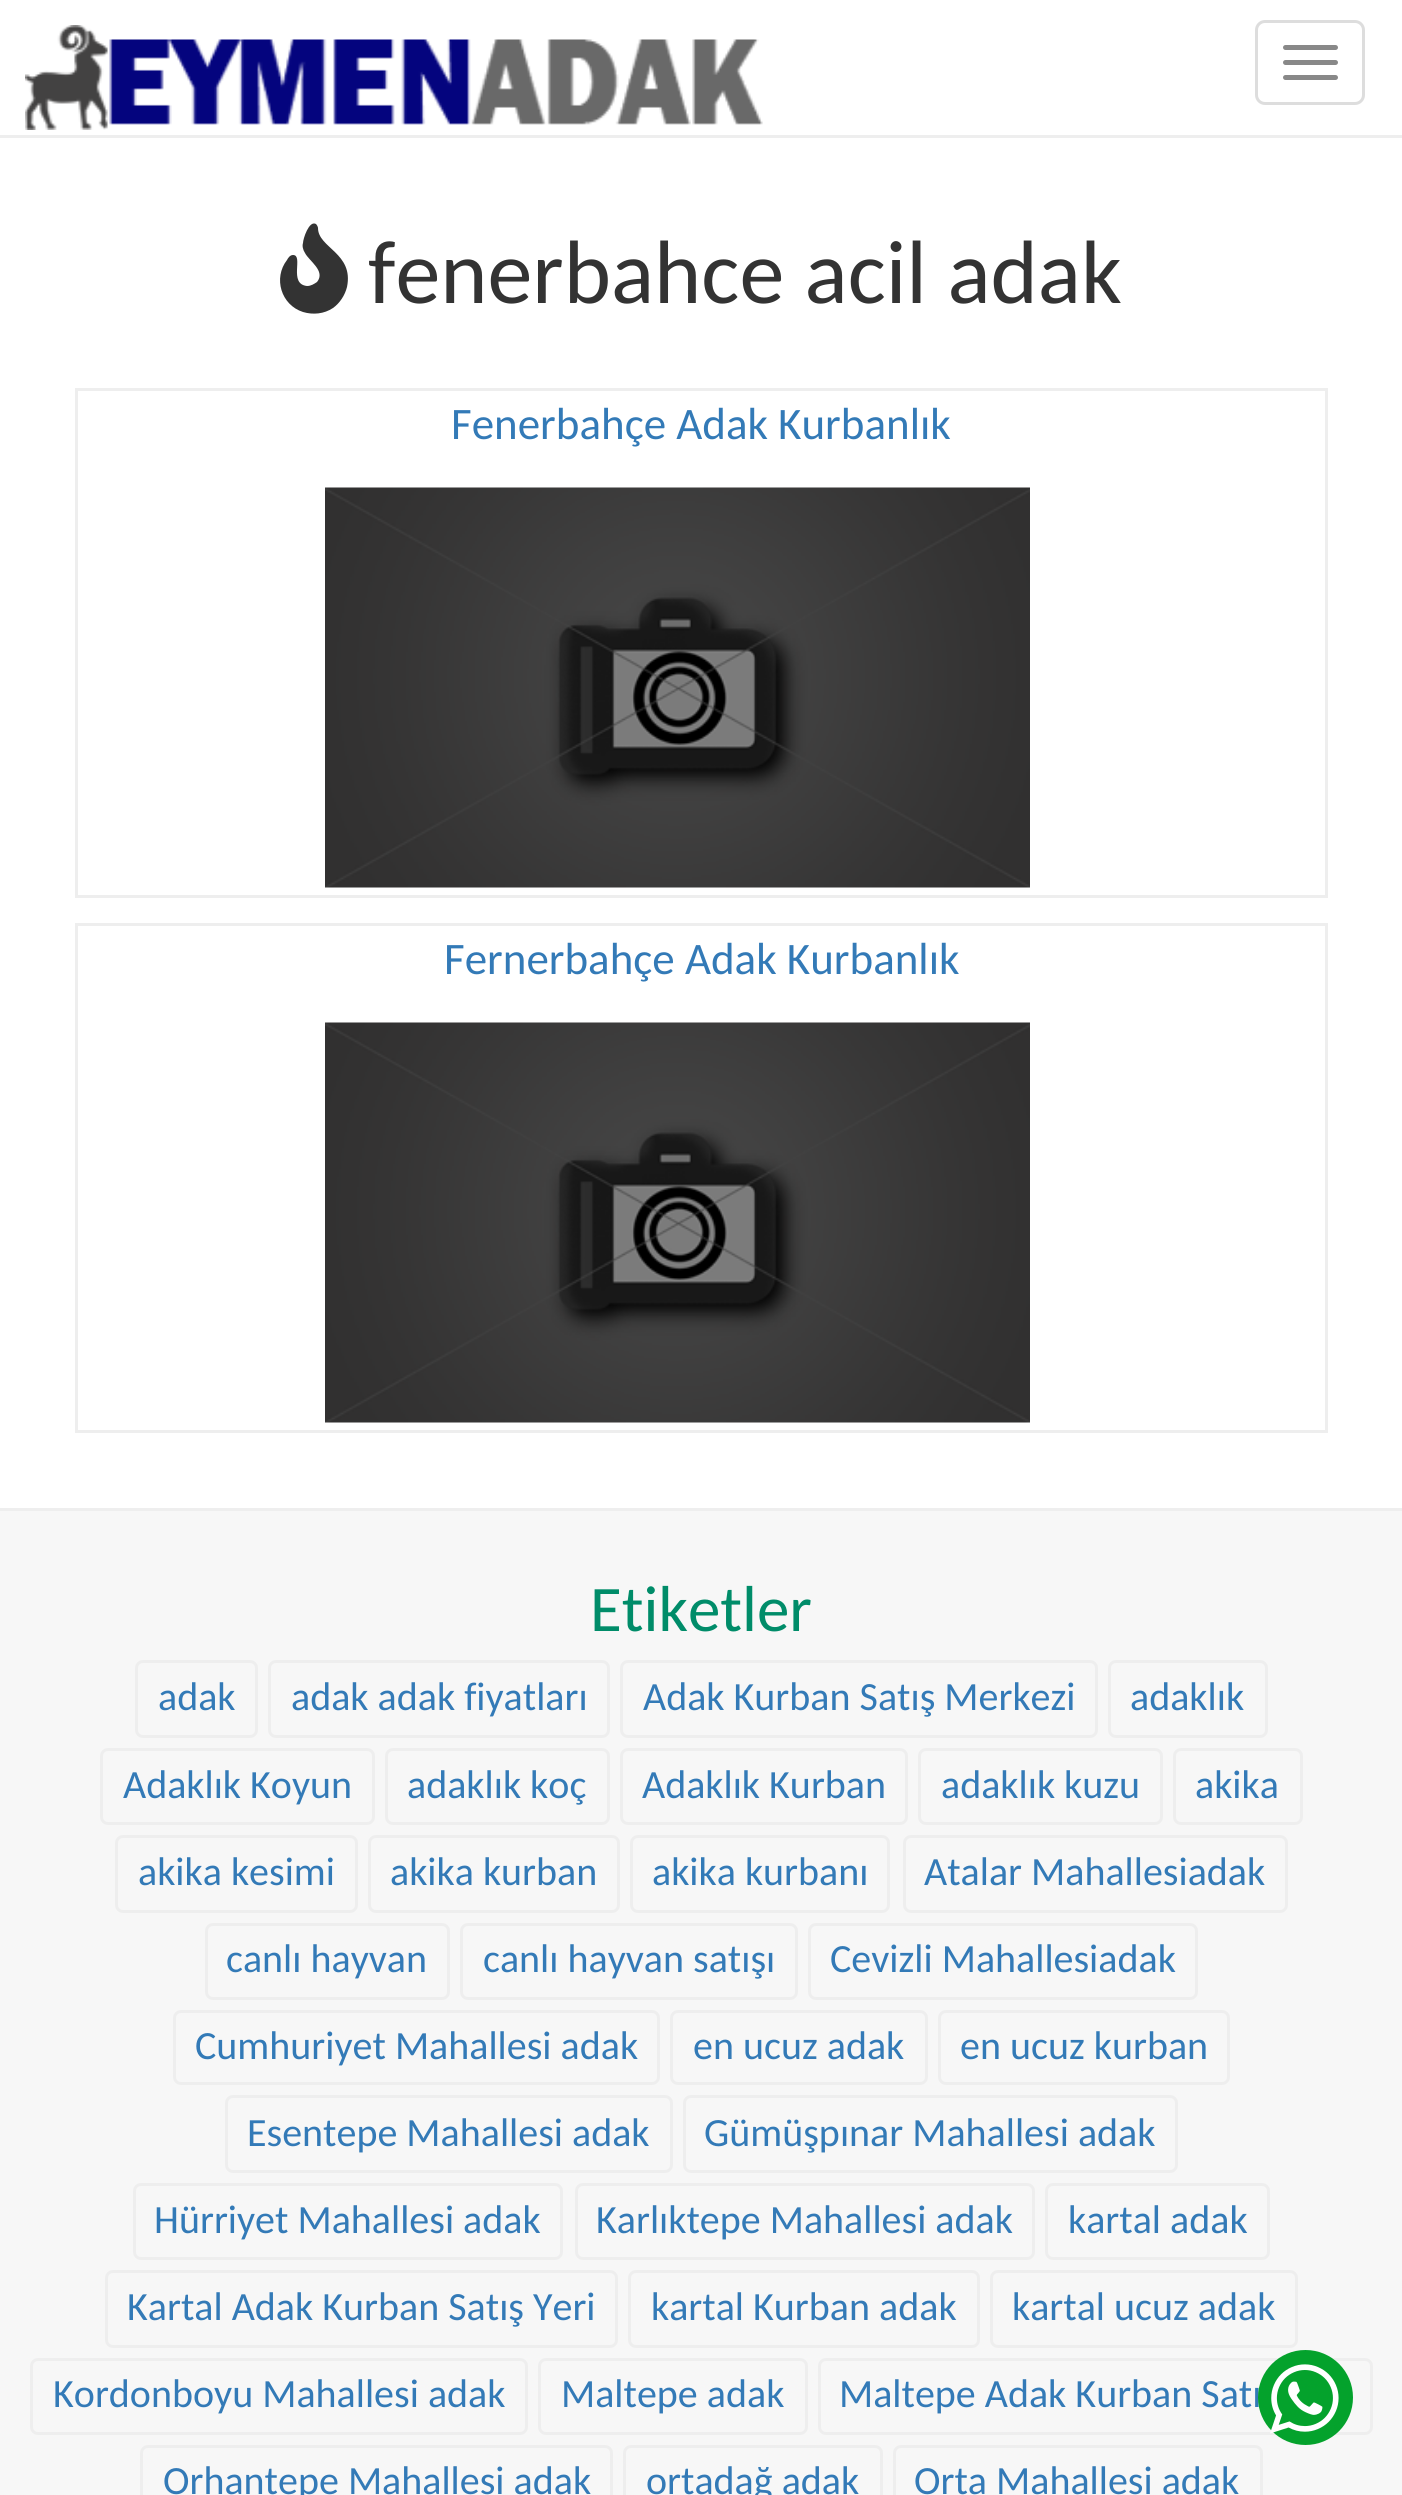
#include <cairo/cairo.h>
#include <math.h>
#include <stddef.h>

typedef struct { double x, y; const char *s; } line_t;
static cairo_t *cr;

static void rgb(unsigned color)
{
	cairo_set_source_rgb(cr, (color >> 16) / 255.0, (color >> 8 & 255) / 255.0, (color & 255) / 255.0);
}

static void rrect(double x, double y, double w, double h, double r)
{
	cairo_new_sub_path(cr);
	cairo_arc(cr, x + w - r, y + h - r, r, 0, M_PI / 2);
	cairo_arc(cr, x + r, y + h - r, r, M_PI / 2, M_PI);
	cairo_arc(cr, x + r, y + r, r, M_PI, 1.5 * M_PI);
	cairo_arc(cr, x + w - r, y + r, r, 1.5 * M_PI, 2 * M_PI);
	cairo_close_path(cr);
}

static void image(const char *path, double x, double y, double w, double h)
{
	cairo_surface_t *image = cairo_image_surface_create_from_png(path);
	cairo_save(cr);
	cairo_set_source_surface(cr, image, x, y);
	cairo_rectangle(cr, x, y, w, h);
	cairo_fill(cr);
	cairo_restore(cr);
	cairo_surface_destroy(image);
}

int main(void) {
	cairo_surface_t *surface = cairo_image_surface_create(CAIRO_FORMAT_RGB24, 1402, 2495);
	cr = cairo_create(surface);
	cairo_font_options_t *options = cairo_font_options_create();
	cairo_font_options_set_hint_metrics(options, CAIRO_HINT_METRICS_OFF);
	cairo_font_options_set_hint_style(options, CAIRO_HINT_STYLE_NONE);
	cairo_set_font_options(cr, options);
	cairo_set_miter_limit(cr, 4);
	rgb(0xffffff);
	cairo_paint(cr);
	rgb(0xeeeeee);
	cairo_rectangle(cr, 0, 135, 1402, 3);
	cairo_fill(cr);
	image("img/1.png", 25, 25, 738, 105);
	rrect(1256.5, 21.5, 107, 82, 8.5);
	rgb(0xdddddd);
	cairo_set_line_width(cr, 3);
	cairo_stroke(cr);
	rgb(0x888888);
	rrect(1283, 45, 55, 5, 2.5);
	cairo_fill(cr);
	rrect(1283, 60, 55, 5, 2.5);
	cairo_fill(cr);
	rrect(1283, 75, 55, 5, 2.5);
	cairo_fill(cr);
	rgb(0x333333);
	cairo_new_path(cr);
	cairo_move_to(cr, 318, 228);
	cairo_curve_to(cr, 318, 227, 317, 225, 316, 224);
	cairo_curve_to(cr, 309, 220, 303, 239, 303, 243);
	cairo_curve_to(cr, 302, 246, 303, 250, 305, 253);
	cairo_curve_to(cr, 309, 261, 326, 271, 317, 282);
	cairo_curve_to(cr, 314, 284, 311, 286, 307, 286);
	cairo_curve_to(cr, 288, 284, 304, 255, 293, 255);
	cairo_curve_to(cr, 290, 255, 288, 258, 287, 260);
	cairo_curve_to(cr, 273, 278, 281, 305, 303, 312);
	cairo_curve_to(cr, 313, 315, 324, 314, 333, 308);
	cairo_curve_to(cr, 340, 303, 345, 295, 347, 287);
	cairo_curve_to(cr, 354, 253, 318, 248, 318, 228);
	cairo_close_path(cr);
	cairo_fill(cr);
	cairo_rectangle(cr, 76.5, 389.5, 1250, 507);
	rgb(0xeeeeee);
	cairo_stroke(cr);
	image("img/2.png", 325, 487, 705, 401);
	cairo_rectangle(cr, 76.5, 924.5, 1250, 507);
	cairo_stroke(cr);
	image("img/2.png", 325, 1022, 705, 401);
	rgb(0xf7f7f7);
	cairo_rectangle(cr, 0, 1511, 1402, 984);
	cairo_fill(cr);
	rgb(0xeeeeee);
	cairo_rectangle(cr, 0, 1508, 1402, 3);
	cairo_fill(cr);
	rrect(136.5, 1661.5, 120, 75, 6.5);
	cairo_stroke(cr);
	rrect(269.5, 1661.5, 339, 75, 6.5);
	cairo_stroke(cr);
	rrect(621.5, 1661.5, 475, 75, 6.5);
	cairo_stroke(cr);
	rrect(1109.5, 1661.5, 157, 75, 6.5);
	cairo_stroke(cr);
	rrect(101.5, 1749.5, 272, 74, 6.5);
	cairo_stroke(cr);
	rrect(386.5, 1749.5, 222, 74, 6.5);
	cairo_stroke(cr);
	rrect(621.5, 1749.5, 285, 74, 6.5);
	cairo_stroke(cr);
	rrect(919.5, 1749.5, 242, 74, 6.5);
	cairo_stroke(cr);
	rrect(1174.5, 1749.5, 127, 74, 6.5);
	cairo_stroke(cr);
	rrect(116.5, 1836.5, 240, 75, 6.5);
	cairo_stroke(cr);
	rrect(369.5, 1836.5, 249, 75, 6.5);
	cairo_stroke(cr);
	rrect(631.5, 1836.5, 257, 75, 6.5);
	cairo_stroke(cr);
	rrect(904.5, 1836.5, 382, 75, 6.5);
	cairo_stroke(cr);
	rrect(206.5, 1924.5, 242, 74, 6.5);
	cairo_stroke(cr);
	rrect(461.5, 1924.5, 335, 74, 6.5);
	cairo_stroke(cr);
	rrect(809.5, 1924.5, 387, 74, 6.5);
	cairo_stroke(cr);
	rrect(174.5, 2011.5, 484, 72, 6.5);
	cairo_stroke(cr);
	rrect(671.5, 2011.5, 255, 72, 6.5);
	cairo_stroke(cr);
	rrect(939.5, 2011.5, 289, 72, 6.5);
	cairo_stroke(cr);
	rrect(226.5, 2096.5, 445, 75, 6.5);
	cairo_stroke(cr);
	rrect(684.5, 2096.5, 492, 75, 6.5);
	cairo_stroke(cr);
	rrect(134.5, 2184.5, 427, 74, 6.5);
	cairo_stroke(cr);
	rrect(576.5, 2184.5, 457, 74, 6.5);
	cairo_stroke(cr);
	rrect(1046.5, 2184.5, 222, 74, 6.5);
	cairo_stroke(cr);
	rrect(106.5, 2271.5, 510, 75, 6.5);
	cairo_stroke(cr);
	rrect(629.5, 2271.5, 349, 75, 6.5);
	cairo_stroke(cr);
	rrect(991.5, 2271.5, 305, 75, 6.5);
	cairo_stroke(cr);
	rrect(31.5, 2359.5, 495, 74, 6.5);
	cairo_stroke(cr);
	rrect(539.5, 2359.5, 267, 74, 6.5);
	cairo_stroke(cr);
	rrect(819.5, 2359.5, 552, 74, 6.5);
	cairo_stroke(cr);
	rrect(141.5, 2446.5, 470, 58, 6.5);
	cairo_stroke(cr);
	rrect(624.5, 2446.5, 257, 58, 6.5);
	cairo_stroke(cr);
	rrect(894.5, 2446.5, 367, 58, 6.5);
	cairo_stroke(cr);
	cairo_select_font_face(cr, "Carlito", CAIRO_FONT_SLANT_NORMAL, CAIRO_FONT_WEIGHT_NORMAL);
	cairo_set_font_size(cr, 90);
	rgb(0x333333);
	cairo_move_to(cr, 368, 303);
	cairo_show_text(cr, "fenerbahce acil adak");
	cairo_set_font_size(cr, 45);
	rgb(0x337ab7);
	cairo_move_to(cr, 451, 439);
	cairo_show_text(cr, "Fenerbahçe Adak Kurbanlık");
	cairo_move_to(cr, 444, 974);
	cairo_show_text(cr, "Fernerbahçe Adak Kurbanlık");
	cairo_set_font_size(cr, 65);
	rgb(0x008c69);
	cairo_move_to(cr, 590, 1631);
	cairo_show_text(cr, "Etiketler");
	cairo_set_font_size(cr, 40);
	rgb(0x337ab7);
	{
		static const line_t items[] = {
			{158, 1710, "adak"},
			{291, 1710, "adak adak fiyatları"},
			{643, 1710, "Adak Kurban Satış Merkezi"},
			{1130, 1710, "adaklık"},
			{123, 1798, "Adaklık Koyun"},
			{407, 1798, "adaklık koç"},
			{642, 1798, "Adaklık Kurban"},
			{941, 1798, "adaklık kuzu"},
			{1195, 1798, "akika"},
			{138, 1885, "akika kesimi"},
			{390, 1885, "akika kurban"},
			{652, 1885, "akika kurbanı"},
			{924, 1885, "Atalar Mahallesiadak"},
			{226, 1972, "canlı hayvan"},
			{483, 1972, "canlı hayvan satışı"},
			{830, 1972, "Cevizli Mahallesiadak"},
			{195, 2059, "Cumhuriyet Mahallesi adak"},
			{693, 2059, "en ucuz adak"},
			{960, 2059, "en ucuz kurban"},
			{247, 2146, "Esentepe Mahallesi adak"},
			{704, 2146, "Gümüşpınar Mahallesi adak"},
			{154, 2233, "Hürriyet Mahallesi adak"},
			{596, 2233, "Karlıktepe Mahallesi adak"},
			{1068, 2233, "kartal adak"},
			{127, 2320, "Kartal Adak Kurban Satış Yeri"},
			{651, 2320, "kartal Kurban adak"},
			{1012, 2320, "kartal ucuz adak"},
			{53, 2407, "Kordonboyu Mahallesi adak"},
			{561, 2407, "Maltepe adak"},
			{839, 2407, "Maltepe Adak Kurban Satı"},
			{163, 2494, "Orhantepe Mahallesi adak"},
			{646, 2494, "ortadağ adak"},
			{914, 2494, "Orta Mahallesi adak"},
		};
		for (size_t i = 0; i < sizeof items / sizeof *items; i++) {
			cairo_move_to(cr, items[i].x, items[i].y);
			cairo_show_text(cr, items[i].s);
		}
	}
	rgb(0x04a22c);
	cairo_new_path(cr);
	cairo_arc(cr, 1305.5, 2397.5, 47.5, 0, 2 * M_PI);
	cairo_fill(cr);
	image("img/3.png", 1270, 2364, 69, 70);
	cairo_surface_write_to_png(surface, "page.png");
	cairo_font_options_destroy(options);
	cairo_destroy(cr);
	cairo_surface_destroy(surface);
	return 0;
}
